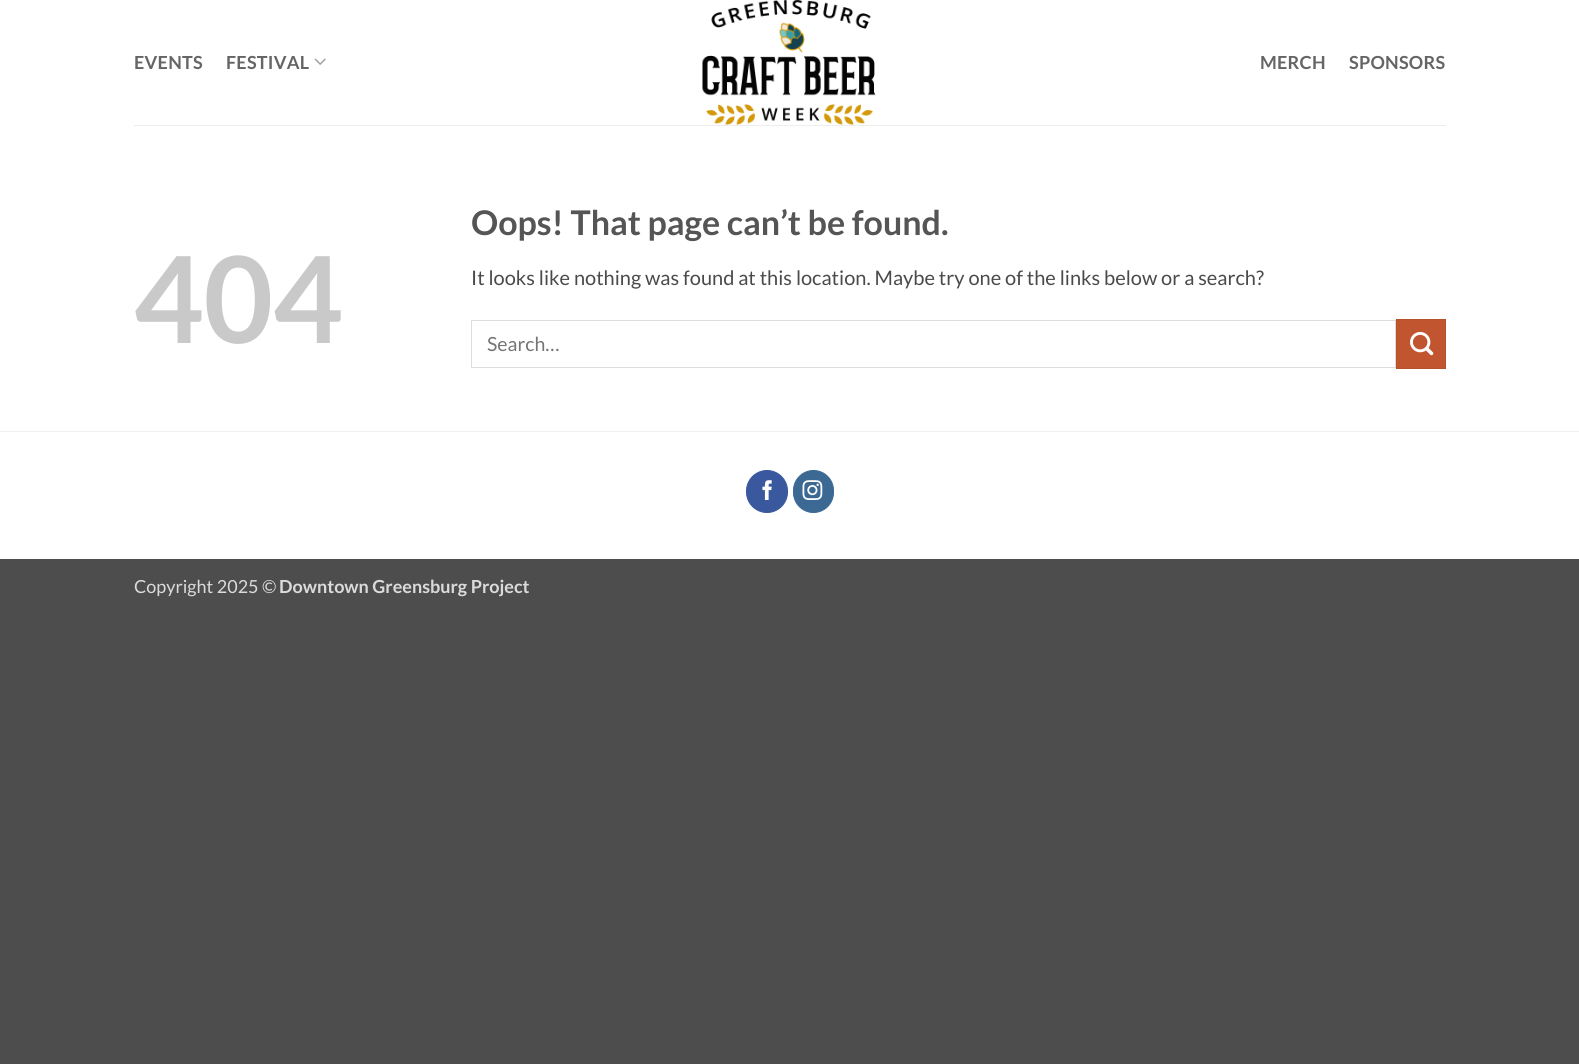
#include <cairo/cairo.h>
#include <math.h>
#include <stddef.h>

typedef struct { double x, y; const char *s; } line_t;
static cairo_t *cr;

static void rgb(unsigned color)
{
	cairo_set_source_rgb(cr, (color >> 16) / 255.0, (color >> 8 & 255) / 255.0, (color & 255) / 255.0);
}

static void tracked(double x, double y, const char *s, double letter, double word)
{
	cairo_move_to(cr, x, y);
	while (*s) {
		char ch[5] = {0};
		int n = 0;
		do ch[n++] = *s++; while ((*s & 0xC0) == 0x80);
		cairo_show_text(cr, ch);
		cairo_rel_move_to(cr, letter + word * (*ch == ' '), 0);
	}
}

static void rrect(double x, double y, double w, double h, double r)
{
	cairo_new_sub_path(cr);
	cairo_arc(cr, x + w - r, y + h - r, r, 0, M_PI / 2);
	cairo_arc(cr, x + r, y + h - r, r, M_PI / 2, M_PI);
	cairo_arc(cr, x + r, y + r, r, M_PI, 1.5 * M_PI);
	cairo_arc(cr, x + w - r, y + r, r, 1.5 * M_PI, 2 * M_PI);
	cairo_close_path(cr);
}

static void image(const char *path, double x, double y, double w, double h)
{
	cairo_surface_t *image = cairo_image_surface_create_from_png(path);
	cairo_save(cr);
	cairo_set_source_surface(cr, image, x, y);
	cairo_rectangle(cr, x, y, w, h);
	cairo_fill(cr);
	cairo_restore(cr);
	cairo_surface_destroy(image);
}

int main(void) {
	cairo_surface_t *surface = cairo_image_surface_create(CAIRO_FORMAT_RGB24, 1579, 1064);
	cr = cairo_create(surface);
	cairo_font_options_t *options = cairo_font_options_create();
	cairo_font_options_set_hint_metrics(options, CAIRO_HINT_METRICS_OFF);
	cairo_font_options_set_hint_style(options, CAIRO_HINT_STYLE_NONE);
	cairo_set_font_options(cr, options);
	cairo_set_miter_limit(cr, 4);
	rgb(0x4d4d4d);
	cairo_paint(cr);
	rgb(0xffffff);
	cairo_rectangle(cr, 0, 0, 1579, 559);
	cairo_fill(cr);
	image("img/1.png", 314, 58, 12, 7);
	image("img/2.png", 702, 0, 174, 125);
	rgb(0xededed);
	cairo_rectangle(cr, 134, 125, 1312, 1);
	cairo_fill(cr);
	cairo_rectangle(cr, 471.5, 320.5, 924, 47);
	rgb(0xdddddd);
	cairo_set_line_width(cr, 1);
	cairo_stroke(cr);
	rgb(0xc05530);
	cairo_rectangle(cr, 1396.5, 319.5, 49, 49);
	cairo_fill_preserve(cr);
	rgb(0xb6512e);
	cairo_stroke(cr);
	image("img/3.png", 1410, 331, 24, 25);
	rgb(0xf2f2f2);
	cairo_rectangle(cr, 0, 431, 1579, 1);
	cairo_fill(cr);
	rgb(0x3a589d);
	rrect(746.5, 470.5, 41, 42, 20.5);
	cairo_fill_preserve(cr);
	cairo_stroke(cr);
	image("img/4.png", 762, 480, 10, 20);
	rgb(0x3b6994);
	rrect(793.5, 470.5, 40, 42, 20);
	cairo_fill_preserve(cr);
	cairo_stroke(cr);
	image("img/5.png", 802, 480, 21, 20);
	cairo_select_font_face(cr, "Lato", CAIRO_FONT_SLANT_NORMAL, CAIRO_FONT_WEIGHT_BOLD);
	cairo_set_font_size(cr, 18);
	rgb(0x656565);
	{
		static const line_t items[] = {
			{134, 69, "EVENTS"},
			{226, 69, "FESTIVAL"},
			{1260, 69, "MERCH"},
			{1349, 69, "SPONSORS"},
		};
		for (size_t i = 0; i < sizeof items / sizeof *items; i++) {
			tracked(items[i].x, items[i].y, items[i].s, 0.25, 0);
		}
	}
	cairo_set_font_size(cr, 120);
	rgb(0xc9c9c9);
	cairo_move_to(cr, 134, 343);
	cairo_show_text(cr, "404");
	cairo_set_font_size(cr, 34);
	rgb(0x555555);
	cairo_move_to(cr, 471, 235);
	cairo_show_text(cr, "Oops! That page can’t be found.");
	cairo_select_font_face(cr, "Lato", CAIRO_FONT_SLANT_NORMAL, CAIRO_FONT_WEIGHT_NORMAL);
	cairo_set_font_size(cr, 20);
	rgb(0x4a4a4a);
	cairo_move_to(cr, 471, 285);
	cairo_show_text(cr, "It looks like nothing was found at this location. Maybe try one of the links below or a search?");
	cairo_set_font_size(cr, 19.5);
	rgb(0x757575);
	cairo_move_to(cr, 487, 351);
	cairo_show_text(cr, "Search…");
	cairo_set_font_size(cr, 18);
	rgb(0xdbdbdb);
	cairo_move_to(cr, 134, 593);
	cairo_show_text(cr, "Copyright 2025 ©");
	cairo_select_font_face(cr, "Lato", CAIRO_FONT_SLANT_NORMAL, CAIRO_FONT_WEIGHT_BOLD);
	cairo_move_to(cr, 279, 593);
	cairo_show_text(cr, "Downtown Greensburg Project");
	cairo_surface_write_to_png(surface, "page.png");
	cairo_font_options_destroy(options);
	cairo_destroy(cr);
	cairo_surface_destroy(surface);
	return 0;
}
